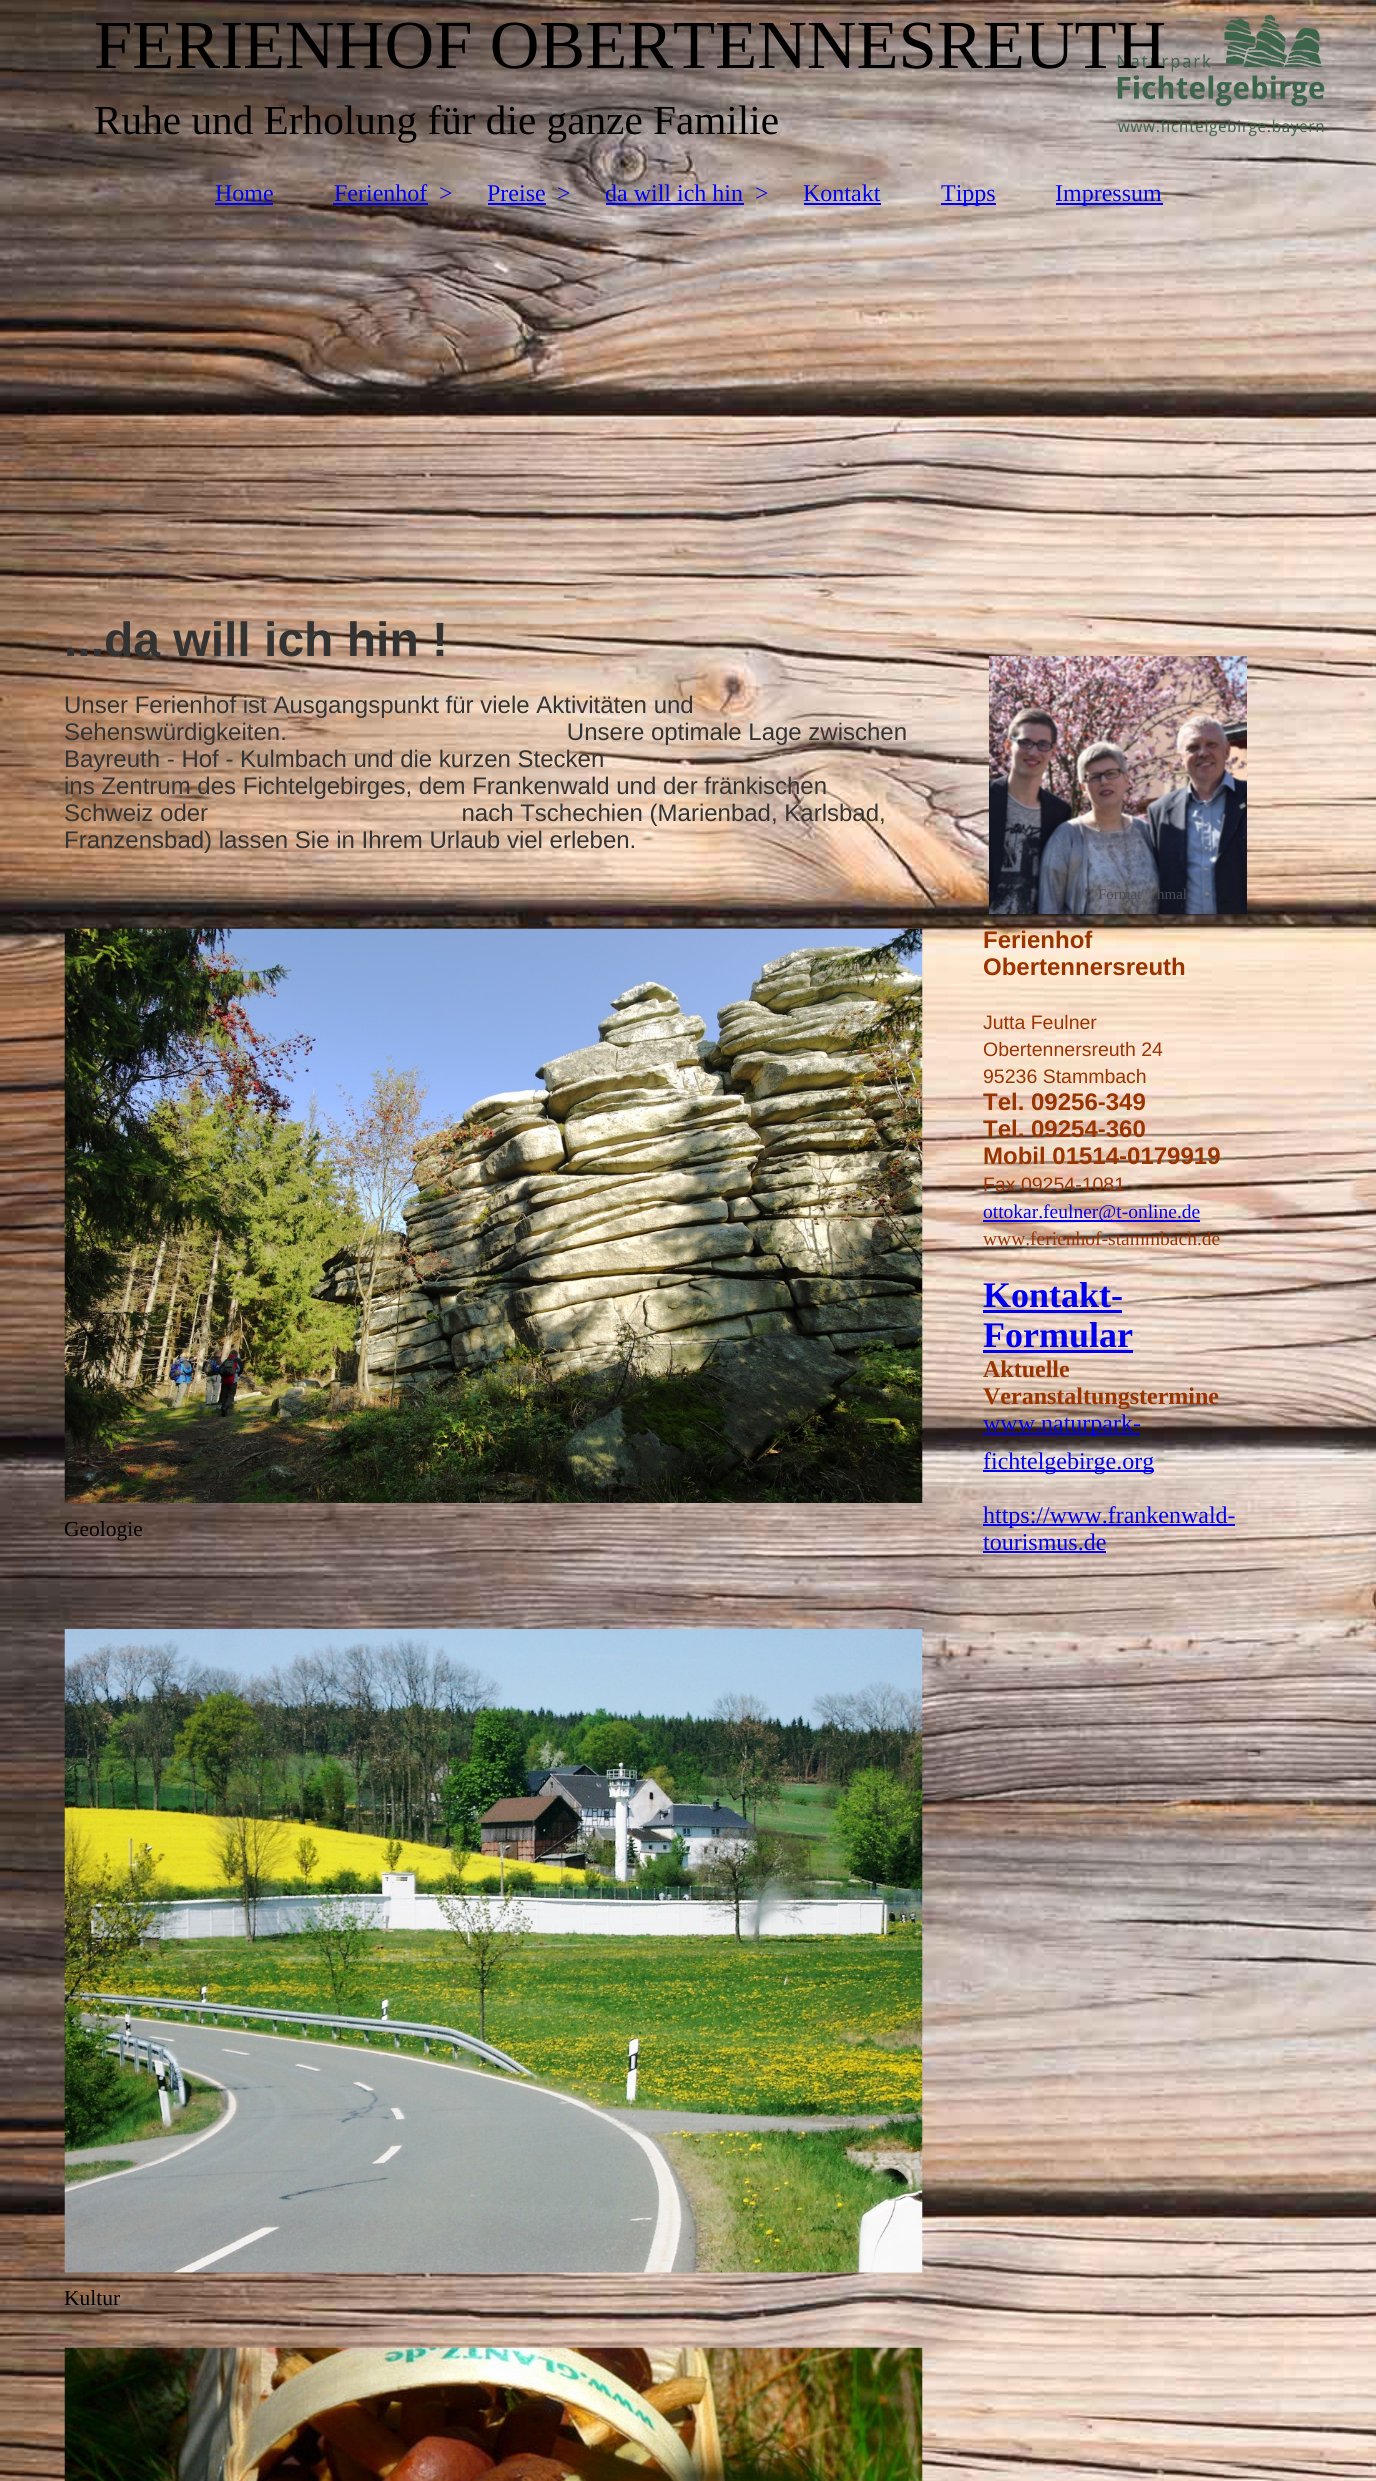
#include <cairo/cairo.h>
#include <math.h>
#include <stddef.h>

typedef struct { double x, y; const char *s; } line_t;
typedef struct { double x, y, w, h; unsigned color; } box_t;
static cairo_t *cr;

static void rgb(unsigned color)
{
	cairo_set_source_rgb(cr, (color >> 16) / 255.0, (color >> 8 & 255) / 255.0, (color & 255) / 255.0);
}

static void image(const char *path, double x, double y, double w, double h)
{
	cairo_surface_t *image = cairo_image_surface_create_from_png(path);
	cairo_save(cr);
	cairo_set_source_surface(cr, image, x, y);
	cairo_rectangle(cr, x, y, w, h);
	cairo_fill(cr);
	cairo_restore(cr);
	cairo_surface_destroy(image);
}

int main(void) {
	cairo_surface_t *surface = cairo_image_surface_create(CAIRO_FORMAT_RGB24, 1376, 2481);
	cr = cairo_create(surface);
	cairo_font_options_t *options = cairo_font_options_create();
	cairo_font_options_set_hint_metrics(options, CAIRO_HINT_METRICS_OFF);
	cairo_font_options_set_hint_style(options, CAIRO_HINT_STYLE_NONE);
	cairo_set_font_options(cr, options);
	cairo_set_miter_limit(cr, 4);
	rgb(0xffffff);
	cairo_paint(cr);
	image("img/1.png", 0, 0, 1376, 2481);
	image("img/2.png", 1117, 14, 208, 123);
	{
		static const box_t items[] = {
			{215, 203, 58, 2, 0x0000ee},
			{333, 203, 95, 2, 0x0000ee},
			{488, 203, 58, 2, 0x0000ee},
			{606, 203, 138, 2, 0x0000ee},
			{804, 203, 77, 2, 0x0000ee},
			{941, 203, 55, 2, 0x0000ee},
			{1056, 203, 107, 2, 0x0000ee},
		};
		for (size_t i = 0; i < sizeof items / sizeof *items; i++) {
			rgb(items[i].color);
			cairo_rectangle(cr, items[i].x, items[i].y, items[i].w, items[i].h);
			cairo_fill(cr);
		}
	}
	image("img/3.png", 64, 928, 859, 575);
	image("img/4.png", 64, 1629, 859, 644);
	image("img/5.png", 64, 2347, 859, 134);
	image("img/6.png", 989, 656, 258, 258);
	{
		static const box_t items[] = {
			{983, 1220, 217, 2, 0x0000ee},
			{983, 1310, 139, 3, 0x0000ee},
			{983, 1350, 150, 3, 0x0000ee},
			{983, 1433, 157, 2, 0x0000ee},
			{983, 1470, 171, 2, 0x0000ee},
			{983, 1524, 252, 2, 0x0000ee},
			{983, 1551, 123, 2, 0x0000ee},
		};
		for (size_t i = 0; i < sizeof items / sizeof *items; i++) {
			rgb(items[i].color);
			cairo_rectangle(cr, items[i].x, items[i].y, items[i].w, items[i].h);
			cairo_fill(cr);
		}
	}
	cairo_select_font_face(cr, "Liberation Serif", CAIRO_FONT_SLANT_NORMAL, CAIRO_FONT_WEIGHT_NORMAL);
	cairo_set_font_size(cr, 68.8);
	rgb(0x000000);
	cairo_move_to(cr, 94, 68);
	cairo_show_text(cr, "FERIENHOF OBERTENNESREUTH");
	cairo_set_font_size(cr, 41.25);
	cairo_move_to(cr, 94, 134);
	cairo_show_text(cr, "Ruhe und Erholung für die ganze Familie");
	cairo_set_font_size(cr, 24);
	rgb(0x0000ee);
	{
		static const line_t items[] = {
			{215, 201, "Home"},
			{334, 201, "Ferienhof"},
			{439, 201, ">"},
			{487, 201, "Preise"},
			{557, 201, ">"},
			{605, 201, "da will ich hin"},
			{755, 201, ">"},
			{803, 201, "Kontakt"},
			{941, 201, "Tipps"},
			{1055, 201, "Impressum"},
		};
		for (size_t i = 0; i < sizeof items / sizeof *items; i++) {
			cairo_move_to(cr, items[i].x, items[i].y);
			cairo_show_text(cr, items[i].s);
		}
	}
	cairo_select_font_face(cr, "Liberation Sans", CAIRO_FONT_SLANT_NORMAL, CAIRO_FONT_WEIGHT_BOLD);
	cairo_set_font_size(cr, 48);
	rgb(0x333333);
	cairo_move_to(cr, 64, 656);
	cairo_show_text(cr, "...da will ich hin !");
	cairo_select_font_face(cr, "Liberation Sans", CAIRO_FONT_SLANT_NORMAL, CAIRO_FONT_WEIGHT_NORMAL);
	cairo_set_font_size(cr, 24);
	{
		static const line_t items[] = {
			{64, 713, "Unser Ferienhof ist Ausgangspunkt für viele Aktivitäten und"},
			{64, 740, "Sehenswürdigkeiten.                                          Unsere optimale Lage zwischen"},
			{64, 767, "Bayreuth - Hof - Kulmbach und die kurzen Stecken"},
			{64, 794, "ins Zentrum des Fichtelgebirges, dem Frankenwald und der fränkischen"},
			{64, 821, "Schweiz oder                                      nach Tschechien (Marienbad, Karlsbad,"},
			{64, 848, "Franzensbad) lassen Sie in Ihrem Urlaub viel erleben."},
		};
		for (size_t i = 0; i < sizeof items / sizeof *items; i++) {
			cairo_move_to(cr, items[i].x, items[i].y);
			cairo_show_text(cr, items[i].s);
		}
	}
	cairo_select_font_face(cr, "Liberation Serif", CAIRO_FONT_SLANT_NORMAL, CAIRO_FONT_WEIGHT_NORMAL);
	cairo_set_font_size(cr, 21.5);
	rgb(0x000000);
	cairo_move_to(cr, 64, 1536);
	cairo_show_text(cr, "Geologie");
	cairo_move_to(cr, 64, 2305);
	cairo_show_text(cr, "Kultur");
	cairo_set_font_size(cr, 15);
	rgb(0x4a4c58);
	cairo_move_to(cr, 1098, 899);
	cairo_show_text(cr, "Format");
	cairo_move_to(cr, 1157, 899);
	cairo_show_text(cr, "hmal");
	cairo_select_font_face(cr, "Liberation Sans", CAIRO_FONT_SLANT_NORMAL, CAIRO_FONT_WEIGHT_BOLD);
	cairo_set_font_size(cr, 24);
	rgb(0x993300);
	cairo_move_to(cr, 983, 948);
	cairo_show_text(cr, "Ferienhof");
	cairo_move_to(cr, 983, 975);
	cairo_show_text(cr, "Obertennersreuth");
	cairo_select_font_face(cr, "Liberation Sans", CAIRO_FONT_SLANT_NORMAL, CAIRO_FONT_WEIGHT_NORMAL);
	cairo_set_font_size(cr, 19.5);
	{
		static const line_t items[] = {
			{983, 1029, "Jutta Feulner"},
			{983, 1056, "Obertennersreuth 24"},
			{983, 1083, "95236 Stammbach"},
		};
		for (size_t i = 0; i < sizeof items / sizeof *items; i++) {
			cairo_move_to(cr, items[i].x, items[i].y);
			cairo_show_text(cr, items[i].s);
		}
	}
	cairo_select_font_face(cr, "Liberation Sans", CAIRO_FONT_SLANT_NORMAL, CAIRO_FONT_WEIGHT_BOLD);
	cairo_set_font_size(cr, 24);
	{
		static const line_t items[] = {
			{983, 1110, "Tel. 09256-349"},
			{983, 1137, "Tel. 09254-360"},
			{983, 1164, "Mobil 01514-0179919"},
		};
		for (size_t i = 0; i < sizeof items / sizeof *items; i++) {
			cairo_move_to(cr, items[i].x, items[i].y);
			cairo_show_text(cr, items[i].s);
		}
	}
	cairo_select_font_face(cr, "Liberation Sans", CAIRO_FONT_SLANT_NORMAL, CAIRO_FONT_WEIGHT_NORMAL);
	cairo_set_font_size(cr, 19.5);
	cairo_move_to(cr, 983, 1191);
	cairo_show_text(cr, "Fax 09254-1081");
	cairo_select_font_face(cr, "Liberation Serif", CAIRO_FONT_SLANT_NORMAL, CAIRO_FONT_WEIGHT_NORMAL);
	rgb(0x0000ee);
	cairo_move_to(cr, 983, 1218);
	cairo_show_text(cr, "ottokar.feulner@t-online.de");
	rgb(0x993300);
	cairo_move_to(cr, 983, 1245);
	cairo_show_text(cr, "www.ferienhof-stammbach.de");
	cairo_select_font_face(cr, "Liberation Serif", CAIRO_FONT_SLANT_NORMAL, CAIRO_FONT_WEIGHT_BOLD);
	cairo_set_font_size(cr, 36);
	rgb(0x0000ee);
	cairo_move_to(cr, 983, 1307);
	cairo_show_text(cr, "Kontakt-");
	cairo_move_to(cr, 983, 1347);
	cairo_show_text(cr, "Formular");
	cairo_set_font_size(cr, 24);
	rgb(0x993300);
	cairo_move_to(cr, 983, 1377);
	cairo_show_text(cr, "Aktuelle");
	cairo_move_to(cr, 983, 1404);
	cairo_show_text(cr, "Veranstaltungstermine");
	cairo_select_font_face(cr, "Liberation Serif", CAIRO_FONT_SLANT_NORMAL, CAIRO_FONT_WEIGHT_NORMAL);
	rgb(0x0000ee);
	{
		static const line_t items[] = {
			{983, 1431, "www.naturpark-"},
			{983, 1469, "fichtelgebirge.org"},
			{983, 1523, "https://www.frankenwald-"},
			{983, 1550, "tourismus.de"},
		};
		for (size_t i = 0; i < sizeof items / sizeof *items; i++) {
			cairo_move_to(cr, items[i].x, items[i].y);
			cairo_show_text(cr, items[i].s);
		}
	}
	cairo_surface_write_to_png(surface, "page.png");
	cairo_font_options_destroy(options);
	cairo_destroy(cr);
	cairo_surface_destroy(surface);
	return 0;
}
